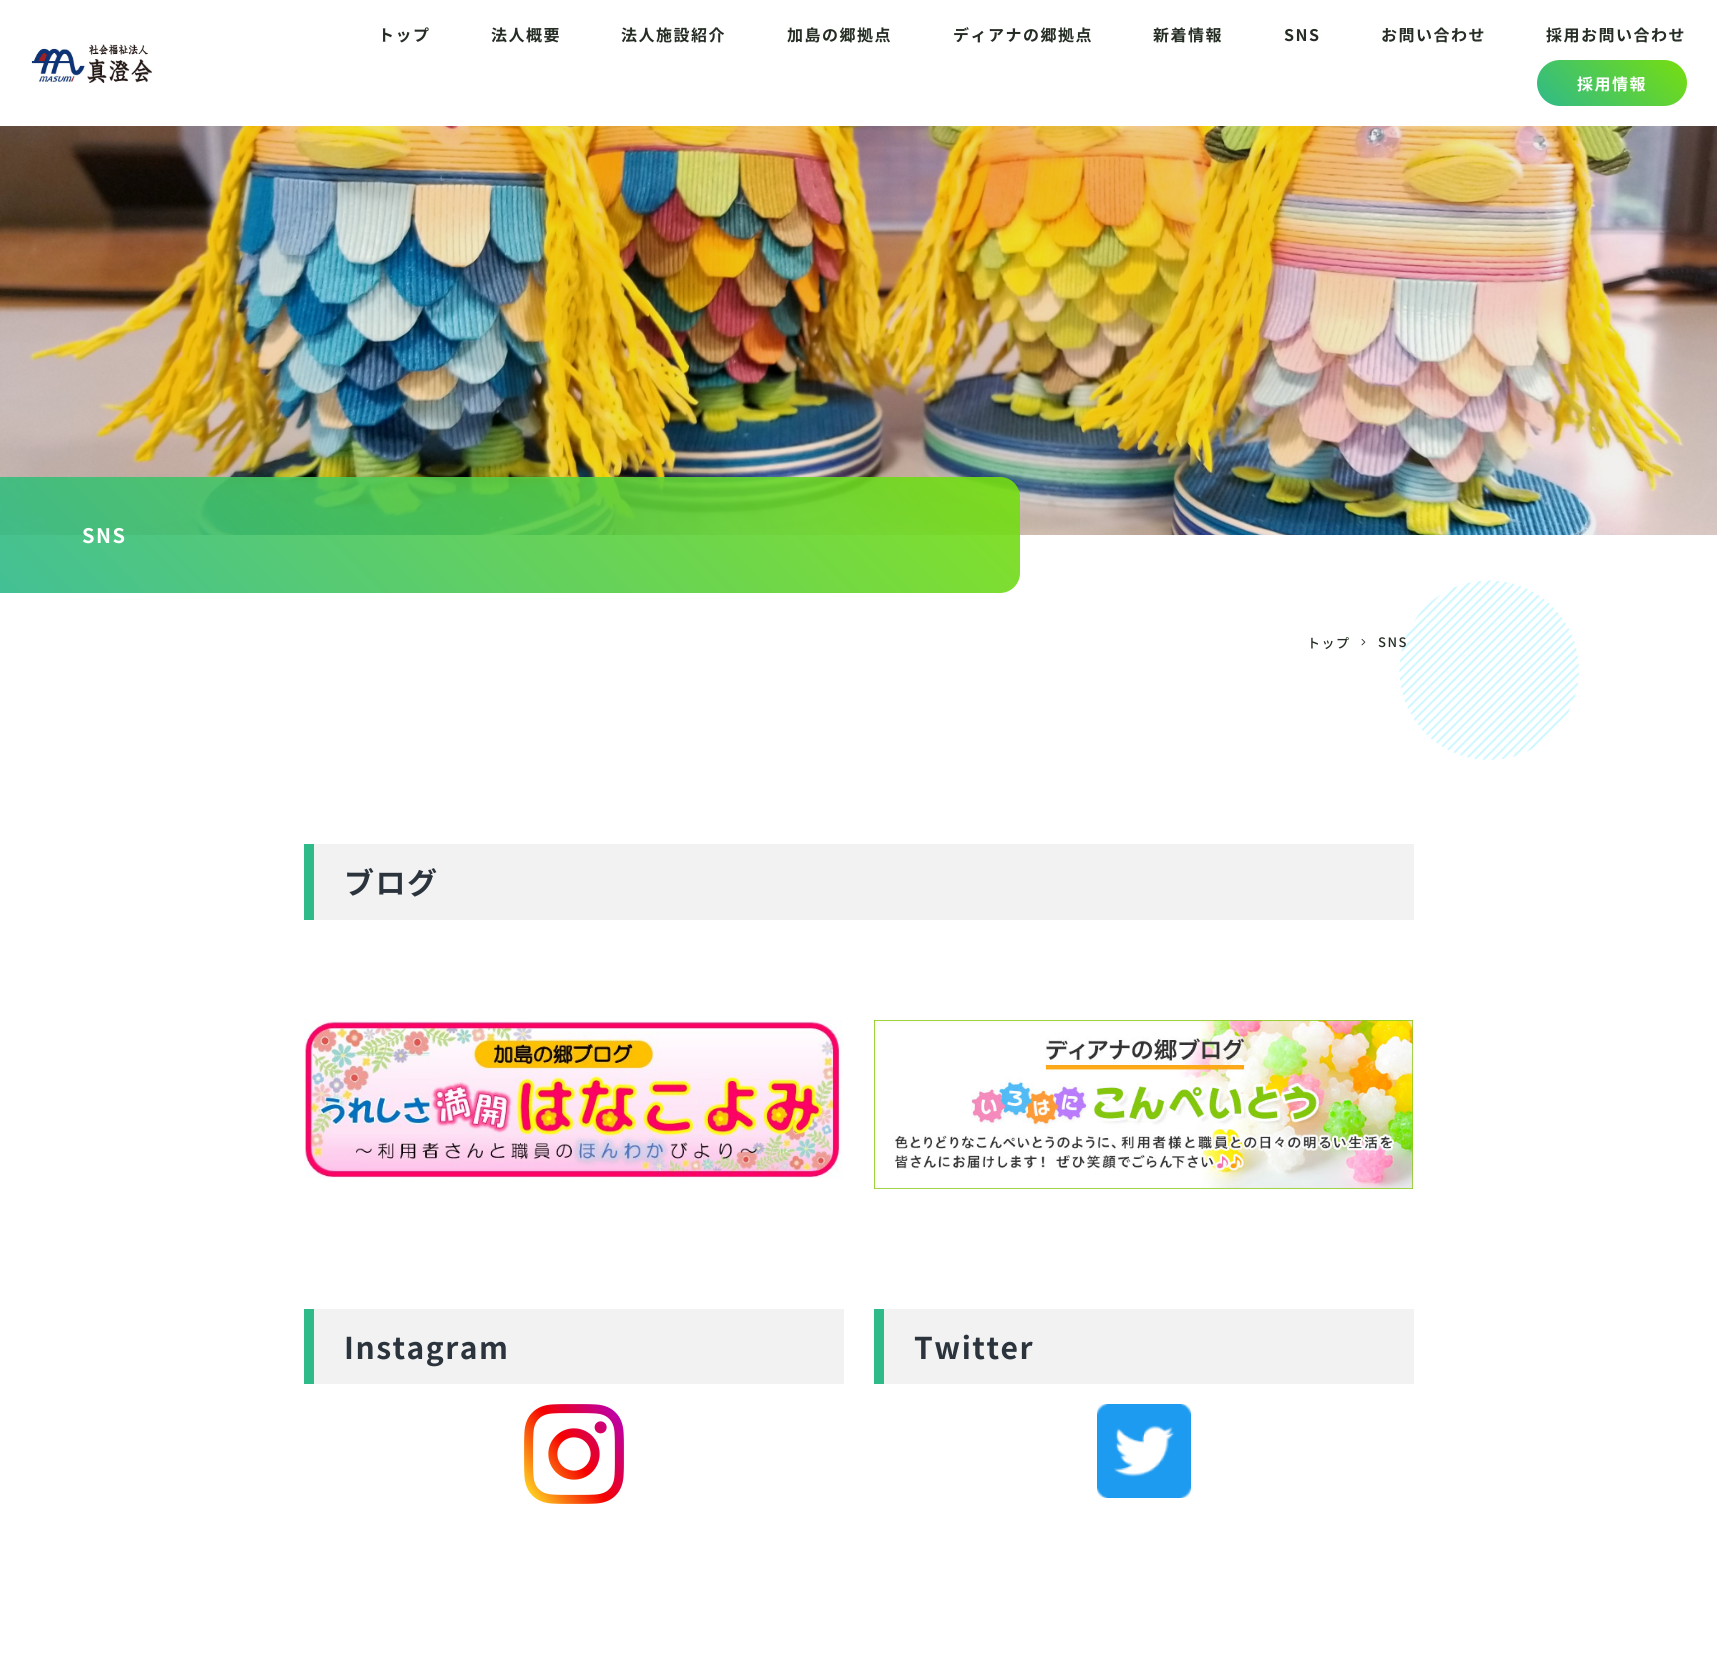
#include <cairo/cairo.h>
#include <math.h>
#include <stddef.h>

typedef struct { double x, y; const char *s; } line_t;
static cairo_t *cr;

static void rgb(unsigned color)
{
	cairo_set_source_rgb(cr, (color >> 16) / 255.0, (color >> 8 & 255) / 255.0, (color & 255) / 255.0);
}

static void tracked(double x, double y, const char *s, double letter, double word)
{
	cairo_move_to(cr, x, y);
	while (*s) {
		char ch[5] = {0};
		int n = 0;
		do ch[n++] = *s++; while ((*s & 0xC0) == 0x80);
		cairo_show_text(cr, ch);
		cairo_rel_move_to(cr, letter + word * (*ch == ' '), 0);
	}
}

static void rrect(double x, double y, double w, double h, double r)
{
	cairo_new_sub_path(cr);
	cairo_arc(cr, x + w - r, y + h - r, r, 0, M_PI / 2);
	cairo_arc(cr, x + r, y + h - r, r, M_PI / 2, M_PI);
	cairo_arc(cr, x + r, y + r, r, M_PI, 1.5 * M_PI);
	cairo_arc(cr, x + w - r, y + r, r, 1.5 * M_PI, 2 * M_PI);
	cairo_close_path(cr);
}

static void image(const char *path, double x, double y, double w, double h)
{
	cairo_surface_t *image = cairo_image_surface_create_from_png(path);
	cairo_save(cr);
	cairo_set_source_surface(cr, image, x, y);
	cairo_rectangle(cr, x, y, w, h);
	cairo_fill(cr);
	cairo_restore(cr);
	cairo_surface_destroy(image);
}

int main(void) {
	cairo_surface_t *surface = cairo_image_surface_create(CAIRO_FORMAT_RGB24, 1717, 1665);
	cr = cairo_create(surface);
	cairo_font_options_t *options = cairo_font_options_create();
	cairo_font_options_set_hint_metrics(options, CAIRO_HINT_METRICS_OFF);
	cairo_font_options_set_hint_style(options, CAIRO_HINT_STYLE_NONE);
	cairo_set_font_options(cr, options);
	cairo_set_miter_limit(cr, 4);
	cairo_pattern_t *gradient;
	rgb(0xffffff);
	cairo_paint(cr);
	image("img/1.png", 31, 44, 122, 39);
	gradient = cairo_pattern_create_linear(1563, 132, 1661, 34);
	cairo_pattern_add_color_stop_rgba(gradient, 0, 0.184, 0.729, 0.541, 1);
	cairo_pattern_add_color_stop_rgba(gradient, 1, 0.467, 0.871, 0.055, 1);
	cairo_set_source(cr, gradient);
	cairo_pattern_destroy(gradient);
	rrect(1537, 60, 150, 46, 23);
	cairo_fill(cr);
	image("img/2.png", 0, 126, 1717, 409);
	gradient = cairo_pattern_create_linear(226, 819, 794, 251);
	cairo_pattern_add_color_stop_rgba(gradient, 0, 0.184, 0.729, 0.541, 0.9);
	cairo_pattern_add_color_stop_rgba(gradient, 1, 0.467, 0.871, 0.055, 0.9);
	cairo_set_source(cr, gradient);
	cairo_pattern_destroy(gradient);
	cairo_new_path(cr);
	cairo_move_to(cr, 0, 477);
	cairo_line_to(cr, 1000, 477);
	cairo_curve_to(cr, 1011, 477, 1020, 486, 1020, 497);
	cairo_line_to(cr, 1020, 573);
	cairo_curve_to(cr, 1020, 584, 1011, 593, 1000, 593);
	cairo_line_to(cr, 0, 593);
	cairo_close_path(cr);
	cairo_fill(cr);
	image("img/3.png", 1361, 638, 5, 8);
	image("img/4.png", 1399, 580, 180, 180);
	rgb(0xf2f2f2);
	cairo_rectangle(cr, 314, 844, 1100, 76);
	cairo_fill(cr);
	rgb(0x2fba8a);
	cairo_rectangle(cr, 304, 844, 10, 76);
	cairo_fill(cr);
	image("img/5.png", 304, 1020, 539, 159);
	image("img/6.png", 874, 1020, 539, 169);
	rgb(0xf2f2f2);
	cairo_rectangle(cr, 314, 1309, 530, 75);
	cairo_fill(cr);
	rgb(0x2fba8a);
	cairo_rectangle(cr, 304, 1309, 10, 75);
	cairo_fill(cr);
	image("img/7.png", 524, 1404, 100, 100);
	rgb(0xf2f2f2);
	cairo_rectangle(cr, 884, 1309, 530, 75);
	cairo_fill(cr);
	rgb(0x2fba8a);
	cairo_rectangle(cr, 874, 1309, 10, 75);
	cairo_fill(cr);
	image("img/8.png", 1097, 1404, 94, 94);
	cairo_select_font_face(cr, "Noto Sans JP", CAIRO_FONT_SLANT_NORMAL, CAIRO_FONT_WEIGHT_BOLD);
	cairo_set_font_size(cr, 16);
	rgb(0x252d24);
	{
		static const line_t items[] = {
			{378, 41, "トップ"},
			{491, 41, "法人概要"},
			{621, 41, "法人施設紹介"},
			{787, 41, "加島の郷拠点"},
			{953, 41, "ディアナの郷拠点"},
			{1153, 41, "新着情報"},
			{1284, 41, "SNS"},
			{1381, 41, "お問い合わせ"},
			{1546, 41, "採用お問い合わせ"},
		};
		for (size_t i = 0; i < sizeof items / sizeof *items; i++) {
			tracked(items[i].x, items[i].y, items[i].s, 1.5, 0);
		}
	}
	rgb(0xffffff);
	tracked(1577, 90, "採用情報", 1.5, 0);
	cairo_set_font_size(cr, 20);
	tracked(82, 543, "SNS", 1.5, 0);
	cairo_select_font_face(cr, "Noto Sans JP Medium", CAIRO_FONT_SLANT_NORMAL, CAIRO_FONT_WEIGHT_NORMAL);
	cairo_set_font_size(cr, 13);
	rgb(0x252d24);
	tracked(1307, 648, "トップ", 1.5, 0);
	tracked(1378, 647, "SNS", 1.5, 0);
	cairo_select_font_face(cr, "Noto Sans JP", CAIRO_FONT_SLANT_NORMAL, CAIRO_FONT_WEIGHT_BOLD);
	cairo_set_font_size(cr, 30);
	rgb(0x2b343d);
	{
		static const line_t items[] = {
			{344, 894, "ブログ"},
			{344, 1359, "Instagram"},
			{914, 1359, "Twitter"},
		};
		for (size_t i = 0; i < sizeof items / sizeof *items; i++) {
			tracked(items[i].x, items[i].y, items[i].s, 1.5, 0);
		}
	}
	cairo_surface_write_to_png(surface, "page.png");
	cairo_font_options_destroy(options);
	cairo_destroy(cr);
	cairo_surface_destroy(surface);
	return 0;
}
